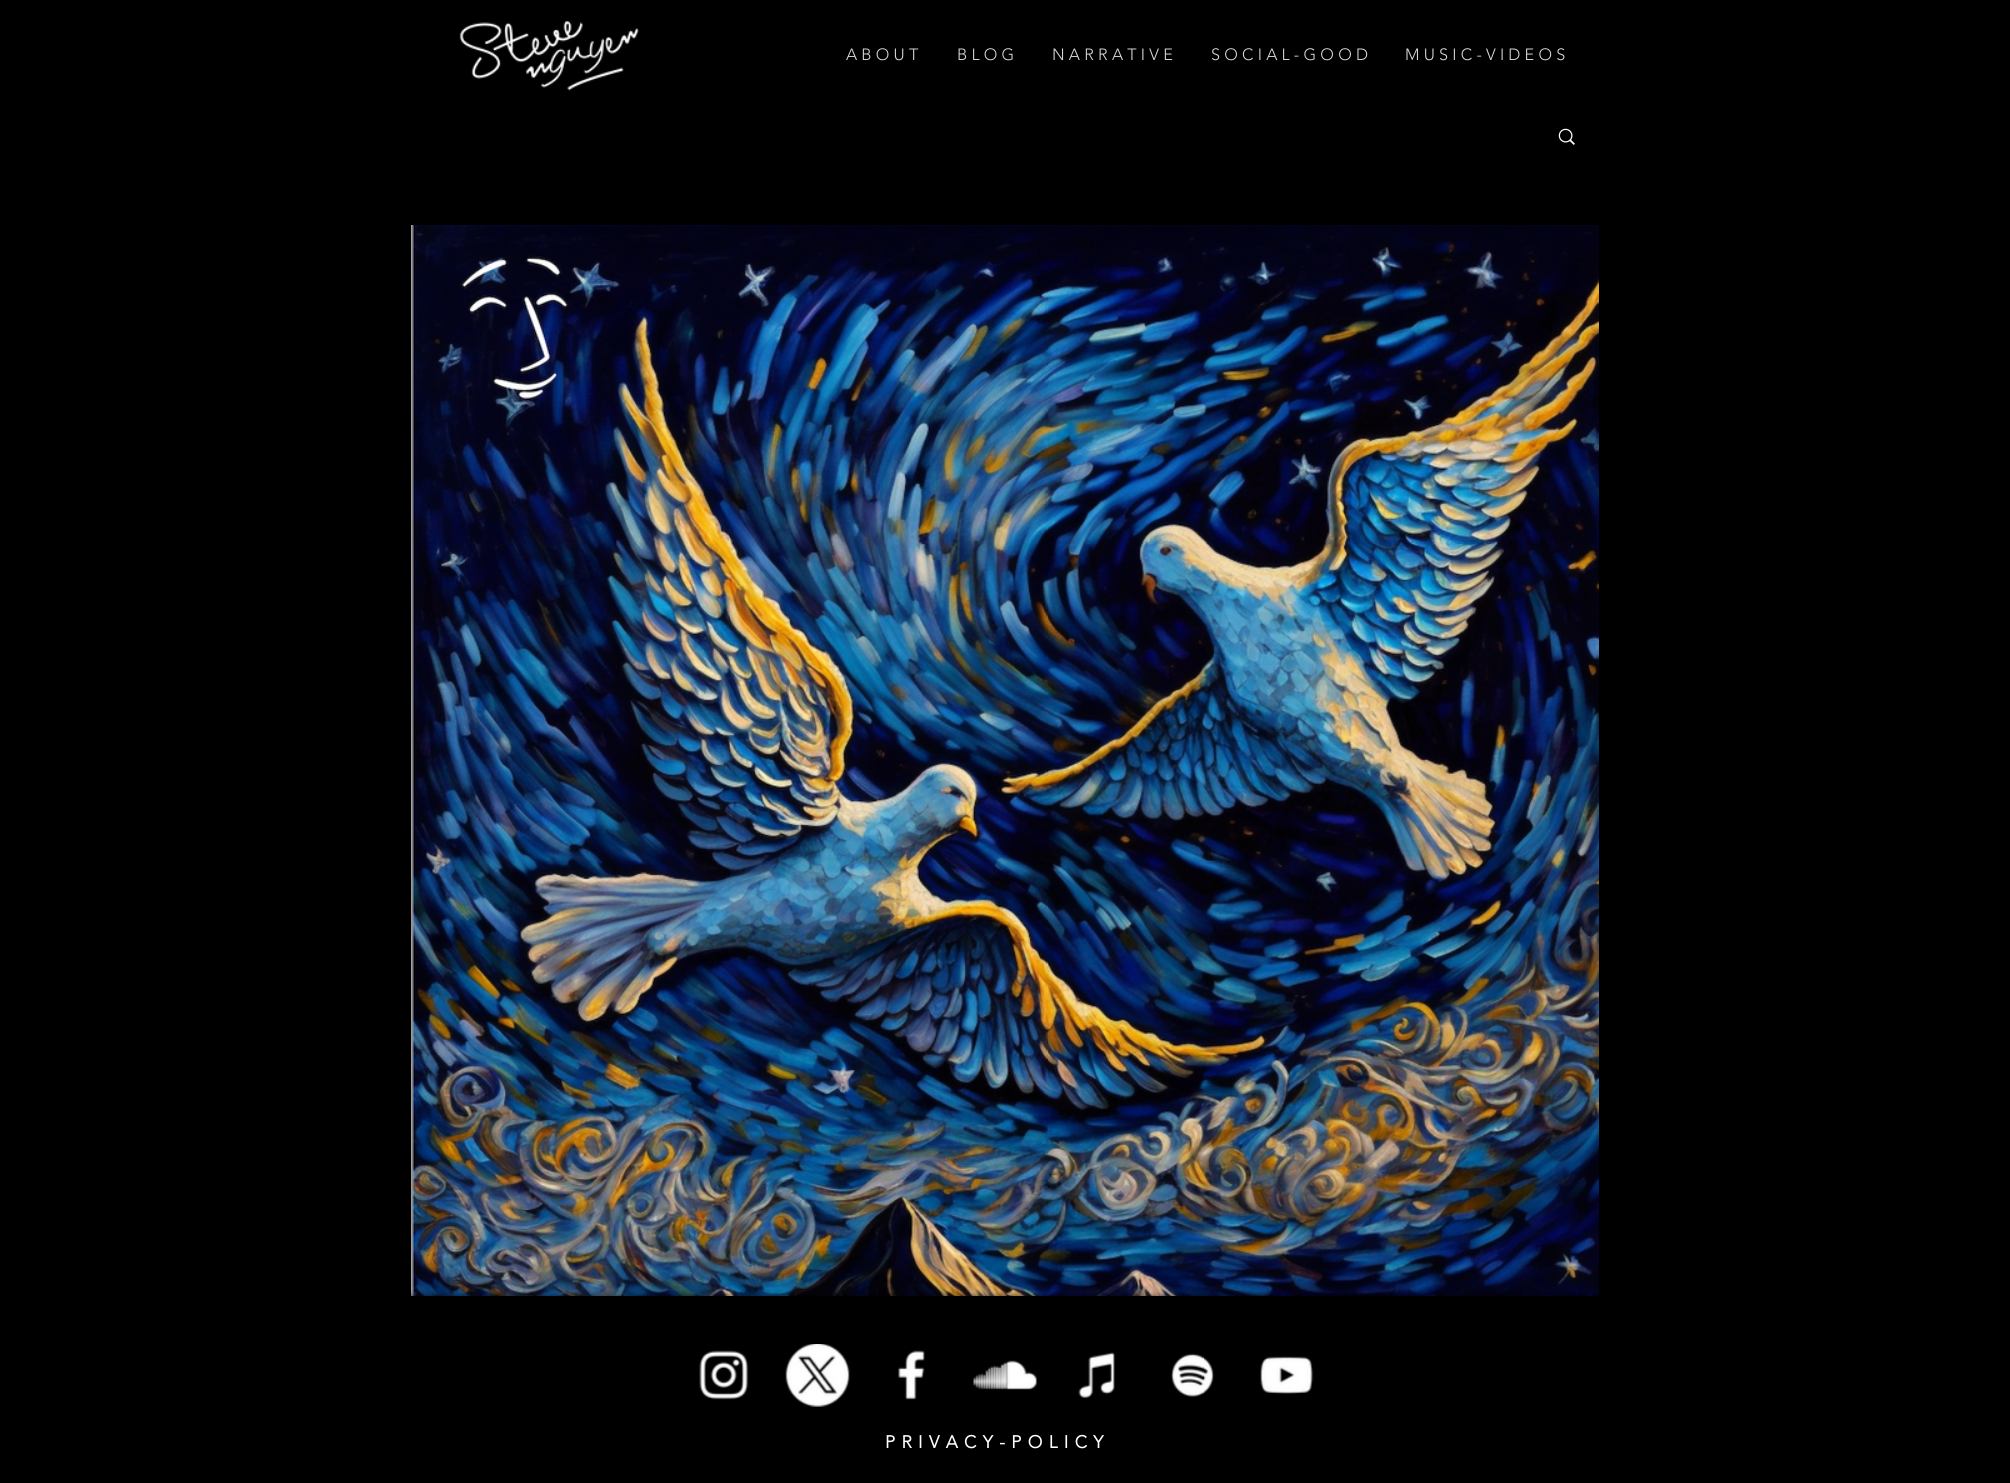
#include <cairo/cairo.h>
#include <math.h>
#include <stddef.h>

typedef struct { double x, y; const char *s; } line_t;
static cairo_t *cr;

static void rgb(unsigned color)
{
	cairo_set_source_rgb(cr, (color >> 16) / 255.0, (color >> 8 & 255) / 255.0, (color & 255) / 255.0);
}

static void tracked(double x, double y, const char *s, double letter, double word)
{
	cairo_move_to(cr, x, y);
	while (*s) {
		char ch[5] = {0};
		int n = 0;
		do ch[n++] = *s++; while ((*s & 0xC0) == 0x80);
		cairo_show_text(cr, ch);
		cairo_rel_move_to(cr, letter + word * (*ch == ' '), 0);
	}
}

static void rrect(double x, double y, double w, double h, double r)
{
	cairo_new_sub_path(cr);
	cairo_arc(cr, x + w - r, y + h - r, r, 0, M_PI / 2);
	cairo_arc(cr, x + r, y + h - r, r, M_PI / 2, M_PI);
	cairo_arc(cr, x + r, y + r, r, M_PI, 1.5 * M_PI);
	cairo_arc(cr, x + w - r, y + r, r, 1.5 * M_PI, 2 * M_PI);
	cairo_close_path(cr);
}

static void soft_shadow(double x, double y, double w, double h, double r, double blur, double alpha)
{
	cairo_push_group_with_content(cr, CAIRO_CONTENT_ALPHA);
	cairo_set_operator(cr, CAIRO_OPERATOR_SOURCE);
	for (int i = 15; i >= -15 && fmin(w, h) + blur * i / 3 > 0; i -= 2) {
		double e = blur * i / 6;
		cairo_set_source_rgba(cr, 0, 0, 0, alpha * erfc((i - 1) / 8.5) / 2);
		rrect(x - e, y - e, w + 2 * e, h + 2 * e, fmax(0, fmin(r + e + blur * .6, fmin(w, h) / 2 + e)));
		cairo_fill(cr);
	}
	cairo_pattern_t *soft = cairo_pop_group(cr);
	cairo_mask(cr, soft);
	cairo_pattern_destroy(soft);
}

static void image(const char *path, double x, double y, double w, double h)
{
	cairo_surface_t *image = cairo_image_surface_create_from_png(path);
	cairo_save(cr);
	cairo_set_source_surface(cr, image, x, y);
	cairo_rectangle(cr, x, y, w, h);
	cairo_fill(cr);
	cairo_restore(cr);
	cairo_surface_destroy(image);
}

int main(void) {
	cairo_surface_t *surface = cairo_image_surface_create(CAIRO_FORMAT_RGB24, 2010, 1483);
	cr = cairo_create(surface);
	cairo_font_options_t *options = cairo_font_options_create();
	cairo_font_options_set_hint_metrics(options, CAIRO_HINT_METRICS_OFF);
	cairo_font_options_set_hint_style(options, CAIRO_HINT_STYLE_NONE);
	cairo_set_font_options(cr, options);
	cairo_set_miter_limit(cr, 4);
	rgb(0x000000);
	cairo_paint(cr);
	image("img/1.png", 459, 21, 180, 70);
	image("img/2.png", 1558, 128, 17, 17);
	image("img/3.png", 411, 225, 1188, 1071);
	soft_shadow(0, 1296, 2010, 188, 0, 3, 0.7);
	image("img/4.png", 699, 1350, 50, 50);
	image("img/5.png", 785, 1344, 65, 63);
	image("img/6.png", 898, 1350, 27, 50);
	image("img/7.png", 973, 1360, 64, 30);
	image("img/8.png", 1078, 1352, 37, 46);
	image("img/9.png", 1171, 1353, 43, 44);
	image("img/10.png", 1260, 1356, 54, 38);
	cairo_select_font_face(cr, "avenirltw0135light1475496 Light", CAIRO_FONT_SLANT_NORMAL, CAIRO_FONT_WEIGHT_NORMAL);
	cairo_set_font_size(cr, 16.25);
	rgb(0xdbd9d7);
	{
		static const line_t items[] = {
			{846, 60, "A B O U T"},
			{957, 60, "B L O G"},
			{1052, 60, "N A R R A T I V E"},
			{1211, 60, "S O C I A L - G O O D"},
			{1405, 60, "M U S I C - V I D E O S"},
		};
		for (size_t i = 0; i < sizeof items / sizeof *items; i++) {
			cairo_move_to(cr, items[i].x, items[i].y);
			cairo_show_text(cr, items[i].s);
		}
	}
	cairo_select_font_face(cr, "avenirltw0135light1475496", CAIRO_FONT_SLANT_NORMAL, CAIRO_FONT_WEIGHT_BOLD);
	cairo_set_font_size(cr, 17.5);
	rgb(0xffffff);
	tracked(885, 1448, "P R I V A C Y - P O L I C Y", 0.9, 0);
	cairo_surface_write_to_png(surface, "page.png");
	cairo_font_options_destroy(options);
	cairo_destroy(cr);
	cairo_surface_destroy(surface);
	return 0;
}
